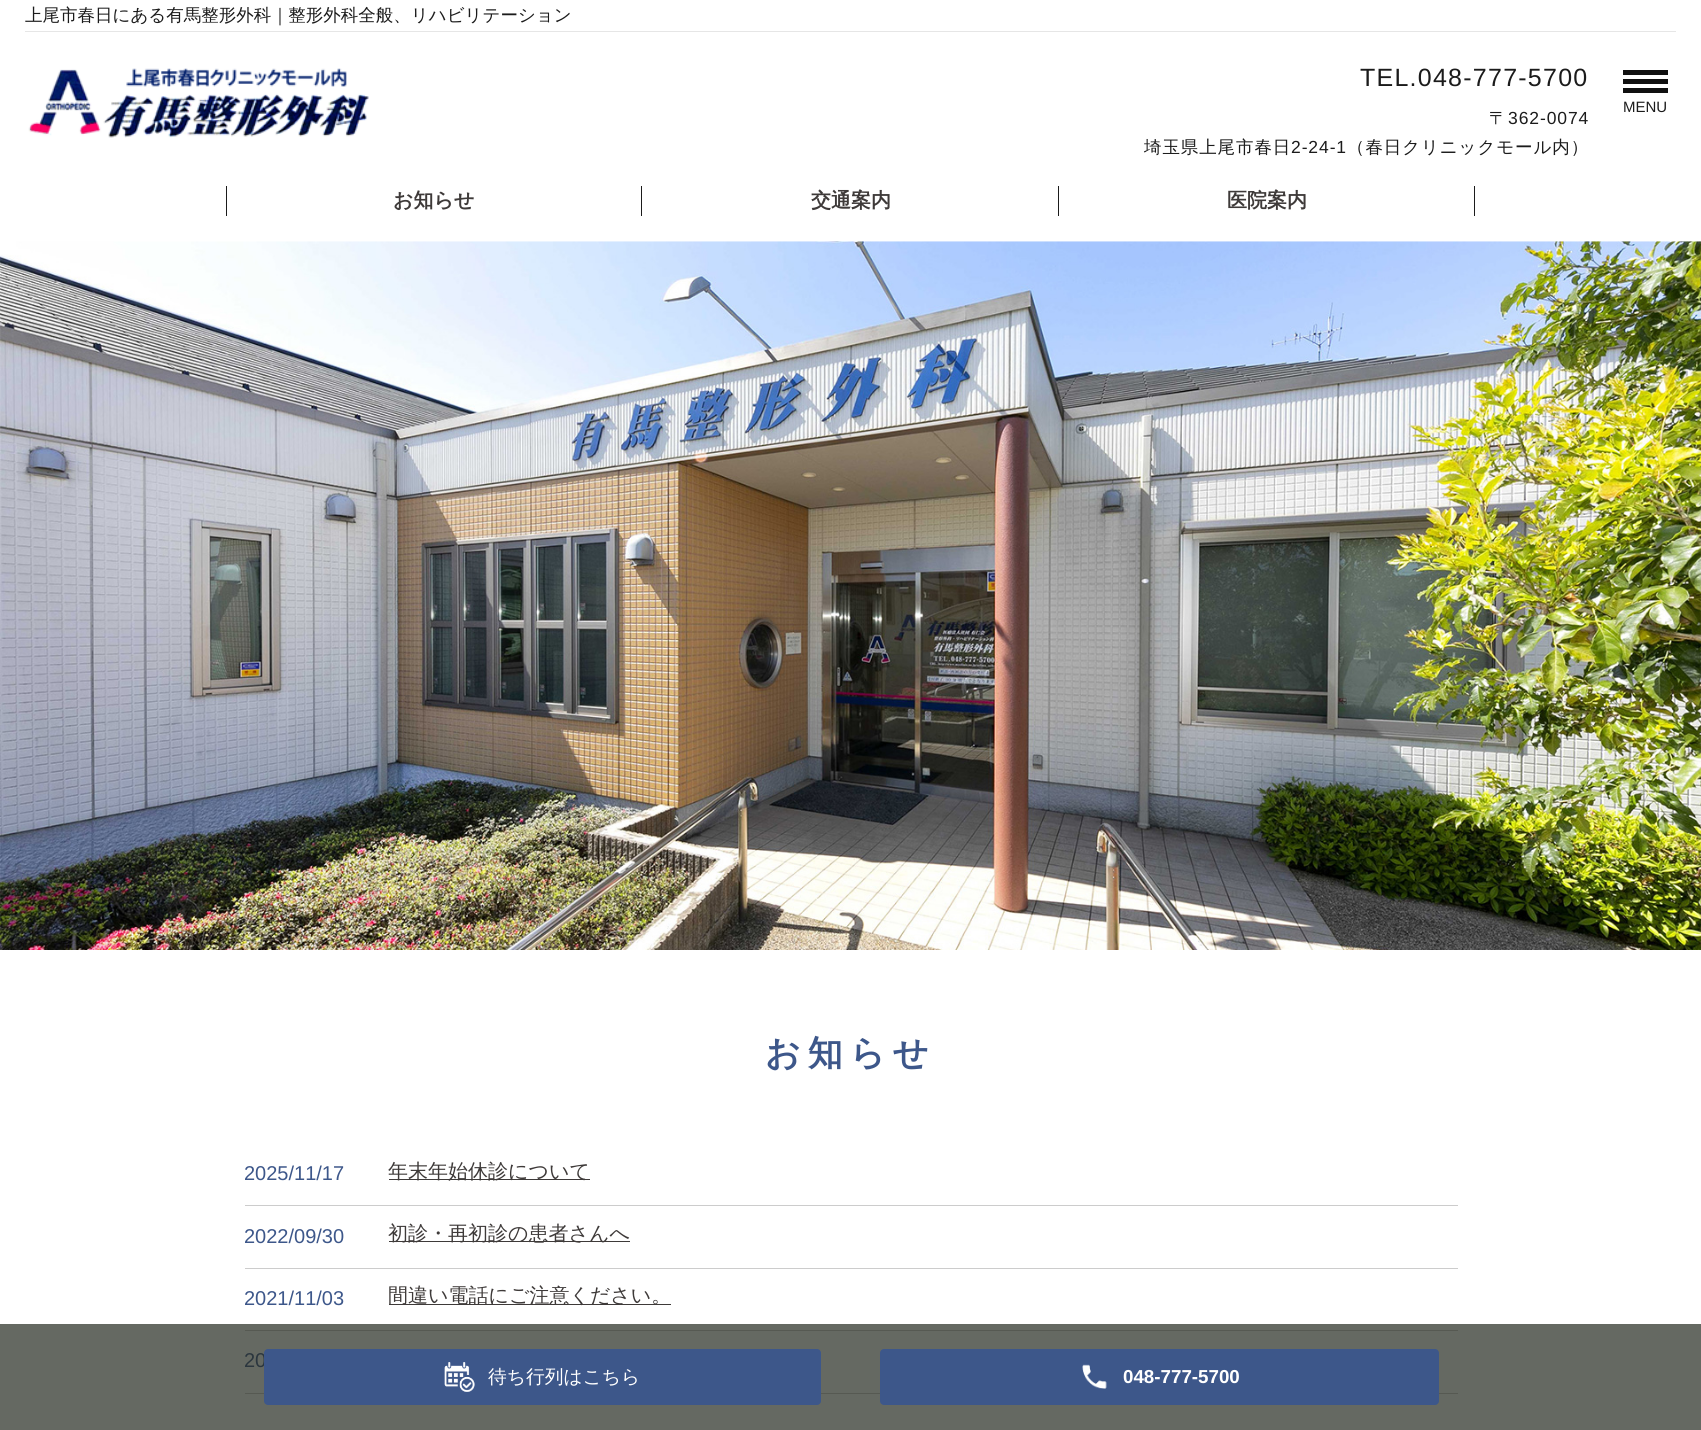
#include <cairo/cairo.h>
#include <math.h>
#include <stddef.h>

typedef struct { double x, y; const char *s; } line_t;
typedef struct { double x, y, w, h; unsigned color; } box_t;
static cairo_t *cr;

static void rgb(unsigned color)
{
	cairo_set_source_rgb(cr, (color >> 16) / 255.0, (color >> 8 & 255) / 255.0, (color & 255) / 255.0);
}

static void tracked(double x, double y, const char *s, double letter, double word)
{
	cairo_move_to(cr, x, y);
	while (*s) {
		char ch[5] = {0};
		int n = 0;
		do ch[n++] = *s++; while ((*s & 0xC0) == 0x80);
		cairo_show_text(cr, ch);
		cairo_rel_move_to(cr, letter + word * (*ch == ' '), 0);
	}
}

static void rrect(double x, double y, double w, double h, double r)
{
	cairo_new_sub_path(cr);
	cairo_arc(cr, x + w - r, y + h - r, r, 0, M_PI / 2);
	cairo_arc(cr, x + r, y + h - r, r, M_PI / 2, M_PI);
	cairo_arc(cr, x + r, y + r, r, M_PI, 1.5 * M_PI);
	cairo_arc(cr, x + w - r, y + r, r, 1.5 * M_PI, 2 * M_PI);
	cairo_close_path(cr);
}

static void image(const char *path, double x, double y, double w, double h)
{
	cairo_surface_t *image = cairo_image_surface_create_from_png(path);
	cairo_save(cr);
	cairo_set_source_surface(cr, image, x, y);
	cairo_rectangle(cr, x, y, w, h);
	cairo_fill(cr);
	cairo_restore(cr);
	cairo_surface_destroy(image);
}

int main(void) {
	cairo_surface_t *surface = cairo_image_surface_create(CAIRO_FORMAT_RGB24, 1701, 1430);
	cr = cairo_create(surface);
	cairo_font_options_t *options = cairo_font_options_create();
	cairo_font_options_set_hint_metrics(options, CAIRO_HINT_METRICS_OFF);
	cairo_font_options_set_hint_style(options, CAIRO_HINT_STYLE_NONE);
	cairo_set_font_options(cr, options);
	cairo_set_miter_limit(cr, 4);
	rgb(0xffffff);
	cairo_paint(cr);
	rgb(0x656962);
	cairo_rectangle(cr, 0, 1324, 1701, 106);
	cairo_fill(cr);
	rgb(0xe6e6e6);
	cairo_rectangle(cr, 25, 31, 1651, 1);
	cairo_fill(cr);
	image("img/1.png", 28, 68, 341, 70);
	{
		static const box_t items[] = {
			{1623, 70, 45, 5, 0x101010},
			{1623, 88, 45, 5, 0x101010},
			{1623, 79, 45, 5, 0x101010},
			{226, 186, 1, 30, 0x1b1b1b},
			{641, 186, 1, 30, 0x1b1b1b},
			{1058, 186, 1, 30, 0x1b1b1b},
			{1474, 186, 1, 30, 0x1b1b1b},
		};
		for (size_t i = 0; i < sizeof items / sizeof *items; i++) {
			rgb(items[i].color);
			cairo_rectangle(cr, items[i].x, items[i].y, items[i].w, items[i].h);
			cairo_fill(cr);
		}
	}
	image("img/2.png", 0, 241, 1701, 709);
	{
		static const box_t items[] = {
			{245, 1205, 1213, 1, 0xcccccc},
			{389, 1179, 201, 1, 0x3e3a39},
			{245, 1268, 1213, 1, 0xcccccc},
			{389, 1241, 241, 1, 0x3e3a39},
			{245, 1330, 1213, 1, 0x565952},
			{389, 1304, 282, 1, 0x3e3a39},
			{245, 1393, 1213, 1, 0x565952},
		};
		for (size_t i = 0; i < sizeof items / sizeof *items; i++) {
			rgb(items[i].color);
			cairo_rectangle(cr, items[i].x, items[i].y, items[i].w, items[i].h);
			cairo_fill(cr);
		}
	}
	rgb(0x3d578a);
	rrect(880, 1349, 559, 56, 4);
	cairo_fill(cr);
	image("img/4.png", 1082, 1364, 25, 25);
	cairo_select_font_face(cr, "WenQuanYi Zen Hei Medium", CAIRO_FONT_SLANT_NORMAL, CAIRO_FONT_WEIGHT_NORMAL);
	cairo_set_font_size(cr, 17.5);
	rgb(0x1b1b1b);
	cairo_move_to(cr, 25, 21);
	cairo_show_text(cr, "上尾市春日にある有馬整形外科｜整形外科全般、リハビリテーション");
	cairo_select_font_face(cr, "Liberation Sans", CAIRO_FONT_SLANT_NORMAL, CAIRO_FONT_WEIGHT_NORMAL);
	cairo_set_font_size(cr, 25);
	tracked(1360, 86, "TEL.048-777-5700", 1.25, 0);
	cairo_select_font_face(cr, "WenQuanYi Zen Hei Medium", CAIRO_FONT_SLANT_NORMAL, CAIRO_FONT_WEIGHT_NORMAL);
	cairo_set_font_size(cr, 17.5);
	tracked(1489, 124, "〒", 0.9, 0);
	cairo_select_font_face(cr, "Liberation Sans", CAIRO_FONT_SLANT_NORMAL, CAIRO_FONT_WEIGHT_NORMAL);
	tracked(1508, 124, "362-0074", 0.9, 0);
	cairo_select_font_face(cr, "WenQuanYi Zen Hei Medium", CAIRO_FONT_SLANT_NORMAL, CAIRO_FONT_WEIGHT_NORMAL);
	tracked(1144, 153, "埼玉県上尾市春日", 0.9, 0);
	cairo_select_font_face(cr, "Liberation Sans", CAIRO_FONT_SLANT_NORMAL, CAIRO_FONT_WEIGHT_NORMAL);
	tracked(1291, 153, "2-24-1", 0.9, 0);
	cairo_select_font_face(cr, "WenQuanYi Zen Hei Medium", CAIRO_FONT_SLANT_NORMAL, CAIRO_FONT_WEIGHT_NORMAL);
	tracked(1347, 153, "（春日クリニックモール内）", 0.9, 0);
	cairo_select_font_face(cr, "Liberation Sans", CAIRO_FONT_SLANT_NORMAL, CAIRO_FONT_WEIGHT_NORMAL);
	cairo_set_font_size(cr, 15);
	cairo_move_to(cr, 1623, 112);
	cairo_show_text(cr, "MENU");
	cairo_select_font_face(cr, "WenQuanYi Zen Hei", CAIRO_FONT_SLANT_NORMAL, CAIRO_FONT_WEIGHT_BOLD);
	cairo_set_font_size(cr, 20);
	rgb(0x3e3a39);
	{
		static const line_t items[] = {
			{393, 207, "お知らせ"},
			{811, 207, "交通案内"},
			{1227, 207, "医院案内"},
		};
		for (size_t i = 0; i < sizeof items / sizeof *items; i++) {
			cairo_move_to(cr, items[i].x, items[i].y);
			cairo_show_text(cr, items[i].s);
		}
	}
	cairo_set_font_size(cr, 35);
	rgb(0x3d578a);
	tracked(765, 1065, "お知らせ", 7, 0);
	cairo_select_font_face(cr, "Liberation Sans", CAIRO_FONT_SLANT_NORMAL, CAIRO_FONT_WEIGHT_NORMAL);
	cairo_set_font_size(cr, 20);
	cairo_move_to(cr, 244, 1180);
	cairo_show_text(cr, "2025/11/17");
	cairo_select_font_face(cr, "WenQuanYi Zen Hei Medium", CAIRO_FONT_SLANT_NORMAL, CAIRO_FONT_WEIGHT_NORMAL);
	rgb(0x3e3a39);
	cairo_move_to(cr, 388, 1178);
	cairo_show_text(cr, "年末年始休診について");
	cairo_select_font_face(cr, "Liberation Sans", CAIRO_FONT_SLANT_NORMAL, CAIRO_FONT_WEIGHT_NORMAL);
	rgb(0x3d578a);
	cairo_move_to(cr, 244, 1243);
	cairo_show_text(cr, "2022/09/30");
	cairo_select_font_face(cr, "WenQuanYi Zen Hei Medium", CAIRO_FONT_SLANT_NORMAL, CAIRO_FONT_WEIGHT_NORMAL);
	rgb(0x3e3a39);
	cairo_move_to(cr, 388, 1240);
	cairo_show_text(cr, "初診・再初診の患者さんへ");
	cairo_select_font_face(cr, "Liberation Sans", CAIRO_FONT_SLANT_NORMAL, CAIRO_FONT_WEIGHT_NORMAL);
	rgb(0x3d578a);
	cairo_move_to(cr, 244, 1305);
	cairo_show_text(cr, "2021/11/03");
	cairo_select_font_face(cr, "WenQuanYi Zen Hei Medium", CAIRO_FONT_SLANT_NORMAL, CAIRO_FONT_WEIGHT_NORMAL);
	rgb(0x3e3a39);
	cairo_move_to(cr, 388, 1302);
	cairo_show_text(cr, "間違い電話にご注意ください。");
	cairo_select_font_face(cr, "Liberation Sans", CAIRO_FONT_SLANT_NORMAL, CAIRO_FONT_WEIGHT_NORMAL);
	rgb(0x2b363e);
	cairo_move_to(cr, 244, 1367);
	cairo_show_text(cr, "20");
	rgb(0x3d578a);
	rrect(264, 1349, 557, 56, 4);
	cairo_fill(cr);
	image("img/3.png", 444, 1362, 31, 30);
	cairo_select_font_face(cr, "WenQuanYi Zen Hei Medium", CAIRO_FONT_SLANT_NORMAL, CAIRO_FONT_WEIGHT_NORMAL);
	cairo_set_font_size(cr, 18.75);
	rgb(0xffffff);
	cairo_move_to(cr, 488, 1383);
	cairo_show_text(cr, "待ち行列はこちら");
	cairo_select_font_face(cr, "Liberation Sans", CAIRO_FONT_SLANT_NORMAL, CAIRO_FONT_WEIGHT_BOLD);
	cairo_move_to(cr, 1123, 1383);
	cairo_show_text(cr, "048-777-5700");
	cairo_surface_write_to_png(surface, "page.png");
	cairo_font_options_destroy(options);
	cairo_destroy(cr);
	cairo_surface_destroy(surface);
	return 0;
}
